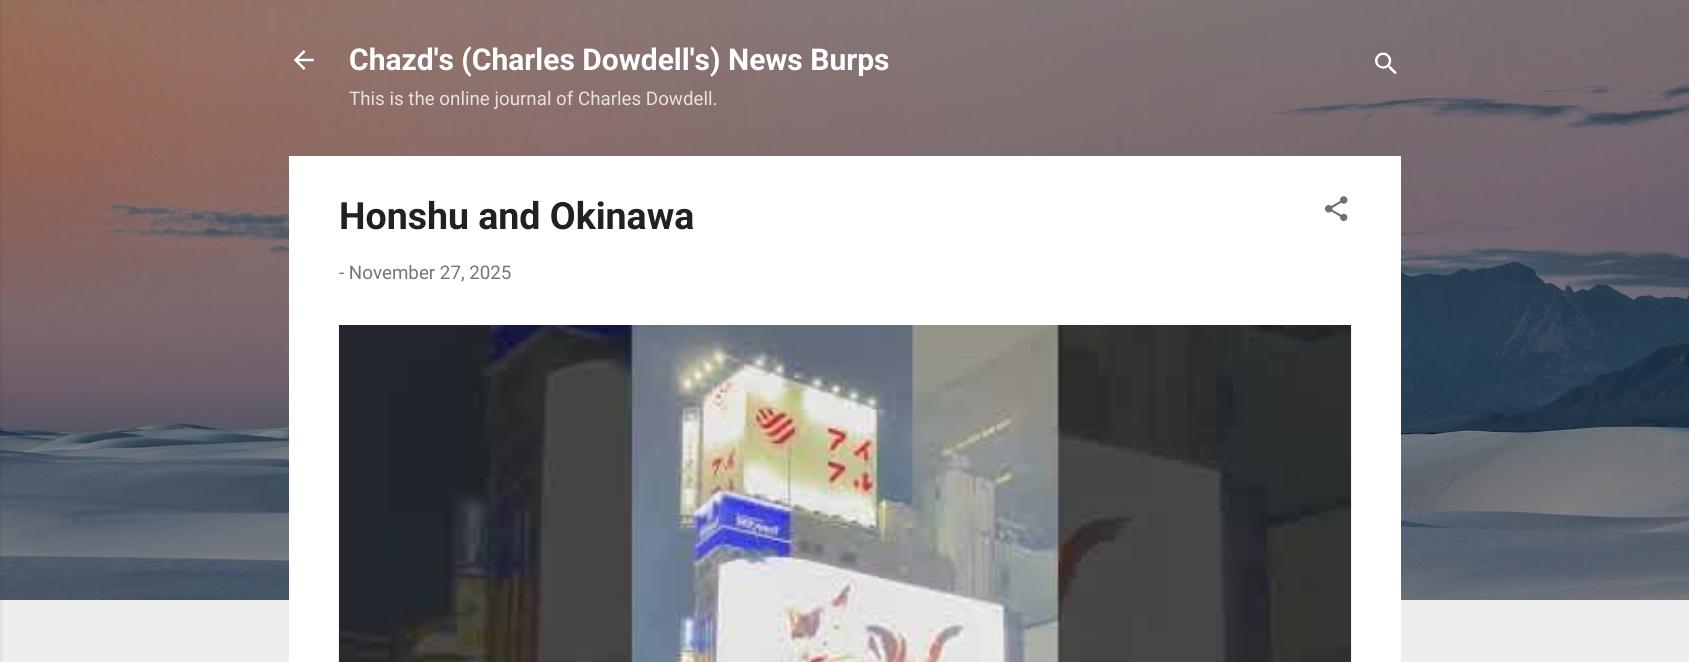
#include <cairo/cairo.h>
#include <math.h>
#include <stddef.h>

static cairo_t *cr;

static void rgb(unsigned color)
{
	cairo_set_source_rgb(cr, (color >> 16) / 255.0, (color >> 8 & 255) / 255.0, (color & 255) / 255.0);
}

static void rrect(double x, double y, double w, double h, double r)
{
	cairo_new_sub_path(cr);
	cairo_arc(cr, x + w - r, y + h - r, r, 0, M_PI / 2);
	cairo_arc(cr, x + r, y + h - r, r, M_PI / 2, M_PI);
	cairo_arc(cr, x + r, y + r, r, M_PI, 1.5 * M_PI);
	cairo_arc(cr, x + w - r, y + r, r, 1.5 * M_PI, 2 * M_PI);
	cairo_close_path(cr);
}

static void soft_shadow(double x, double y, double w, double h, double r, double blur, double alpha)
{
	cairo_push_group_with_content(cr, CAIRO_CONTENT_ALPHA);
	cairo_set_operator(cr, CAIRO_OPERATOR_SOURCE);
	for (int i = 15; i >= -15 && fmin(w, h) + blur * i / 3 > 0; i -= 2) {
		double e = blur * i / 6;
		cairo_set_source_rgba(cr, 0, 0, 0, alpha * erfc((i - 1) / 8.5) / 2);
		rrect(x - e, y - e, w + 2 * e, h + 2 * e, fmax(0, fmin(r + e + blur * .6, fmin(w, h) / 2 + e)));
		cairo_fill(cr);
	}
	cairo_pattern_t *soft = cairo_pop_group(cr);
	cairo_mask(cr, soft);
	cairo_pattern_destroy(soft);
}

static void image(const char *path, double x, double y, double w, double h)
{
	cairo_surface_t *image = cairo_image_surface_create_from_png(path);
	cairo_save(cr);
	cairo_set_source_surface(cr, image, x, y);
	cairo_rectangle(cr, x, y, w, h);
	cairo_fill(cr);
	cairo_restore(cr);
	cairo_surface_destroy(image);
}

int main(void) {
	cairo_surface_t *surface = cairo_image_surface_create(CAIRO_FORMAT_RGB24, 1689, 662);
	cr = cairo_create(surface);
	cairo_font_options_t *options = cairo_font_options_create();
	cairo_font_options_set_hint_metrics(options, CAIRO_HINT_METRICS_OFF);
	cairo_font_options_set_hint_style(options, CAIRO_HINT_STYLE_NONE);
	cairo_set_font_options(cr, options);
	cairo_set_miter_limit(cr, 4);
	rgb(0xeeeeee);
	cairo_paint(cr);
	image("img/1.png", 0, 0, 1689, 600);
	rgb(0x000000);
	soft_shadow(-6, 1, 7, 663, 0, 2, 0.1);
	image("img/2.png", 294, 50, 20, 20);
	image("img/3.png", 1375, 52, 22, 23);
	rgb(0xffffff);
	cairo_rectangle(cr, 289, 156, 1112, 506);
	cairo_fill(cr);
	image("img/4.png", 1325, 196, 23, 26);
	image("img/5.png", 338, 325, 1014, 337);
	cairo_select_font_face(cr, "Roboto", CAIRO_FONT_SLANT_NORMAL, CAIRO_FONT_WEIGHT_BOLD);
	cairo_set_font_size(cr, 30);
	cairo_move_to(cr, 349, 70);
	cairo_show_text(cr, "Chazd's (Charles Dowdell's) News Burps");
	cairo_select_font_face(cr, "Roboto", CAIRO_FONT_SLANT_NORMAL, CAIRO_FONT_WEIGHT_NORMAL);
	cairo_set_font_size(cr, 18.75);
	rgb(0xe8e2e2);
	cairo_move_to(cr, 349, 105);
	cairo_show_text(cr, "This is the online journal of Charles Dowdell.");
	cairo_select_font_face(cr, "Roboto", CAIRO_FONT_SLANT_NORMAL, CAIRO_FONT_WEIGHT_BOLD);
	cairo_set_font_size(cr, 37.5);
	rgb(0x212121);
	cairo_move_to(cr, 339, 229);
	cairo_show_text(cr, "Honshu and Okinawa");
	cairo_select_font_face(cr, "Roboto", CAIRO_FONT_SLANT_NORMAL, CAIRO_FONT_WEIGHT_NORMAL);
	cairo_set_font_size(cr, 18.75);
	rgb(0x757575);
	cairo_move_to(cr, 339, 279);
	cairo_show_text(cr, "- November 27, 2025");
	cairo_surface_write_to_png(surface, "page.png");
	cairo_font_options_destroy(options);
	cairo_destroy(cr);
	cairo_surface_destroy(surface);
	return 0;
}
